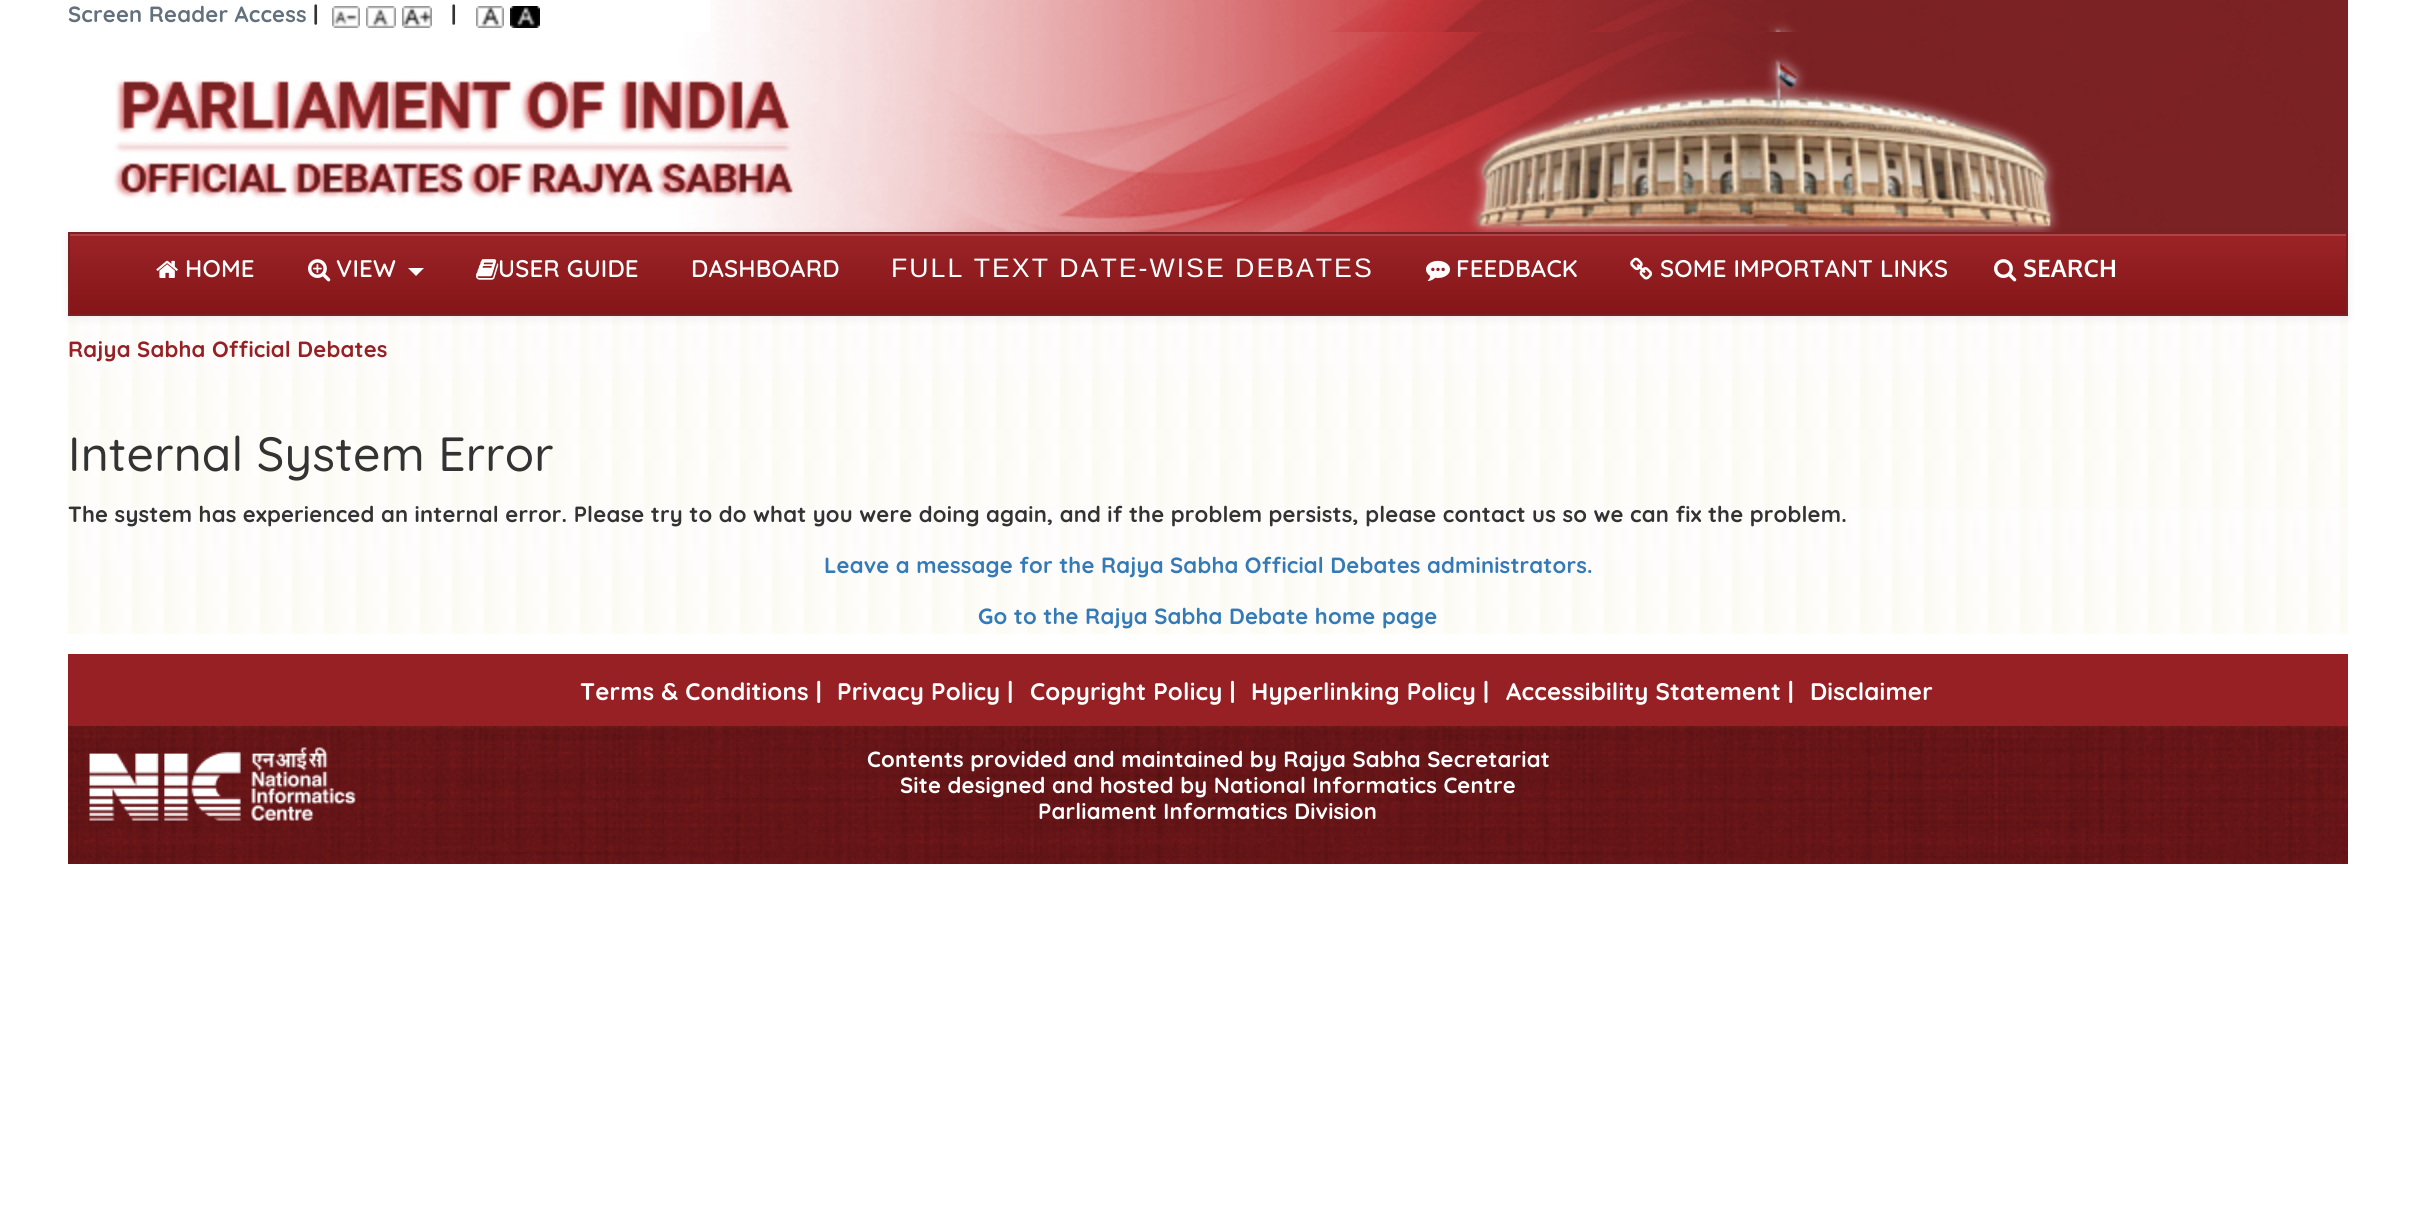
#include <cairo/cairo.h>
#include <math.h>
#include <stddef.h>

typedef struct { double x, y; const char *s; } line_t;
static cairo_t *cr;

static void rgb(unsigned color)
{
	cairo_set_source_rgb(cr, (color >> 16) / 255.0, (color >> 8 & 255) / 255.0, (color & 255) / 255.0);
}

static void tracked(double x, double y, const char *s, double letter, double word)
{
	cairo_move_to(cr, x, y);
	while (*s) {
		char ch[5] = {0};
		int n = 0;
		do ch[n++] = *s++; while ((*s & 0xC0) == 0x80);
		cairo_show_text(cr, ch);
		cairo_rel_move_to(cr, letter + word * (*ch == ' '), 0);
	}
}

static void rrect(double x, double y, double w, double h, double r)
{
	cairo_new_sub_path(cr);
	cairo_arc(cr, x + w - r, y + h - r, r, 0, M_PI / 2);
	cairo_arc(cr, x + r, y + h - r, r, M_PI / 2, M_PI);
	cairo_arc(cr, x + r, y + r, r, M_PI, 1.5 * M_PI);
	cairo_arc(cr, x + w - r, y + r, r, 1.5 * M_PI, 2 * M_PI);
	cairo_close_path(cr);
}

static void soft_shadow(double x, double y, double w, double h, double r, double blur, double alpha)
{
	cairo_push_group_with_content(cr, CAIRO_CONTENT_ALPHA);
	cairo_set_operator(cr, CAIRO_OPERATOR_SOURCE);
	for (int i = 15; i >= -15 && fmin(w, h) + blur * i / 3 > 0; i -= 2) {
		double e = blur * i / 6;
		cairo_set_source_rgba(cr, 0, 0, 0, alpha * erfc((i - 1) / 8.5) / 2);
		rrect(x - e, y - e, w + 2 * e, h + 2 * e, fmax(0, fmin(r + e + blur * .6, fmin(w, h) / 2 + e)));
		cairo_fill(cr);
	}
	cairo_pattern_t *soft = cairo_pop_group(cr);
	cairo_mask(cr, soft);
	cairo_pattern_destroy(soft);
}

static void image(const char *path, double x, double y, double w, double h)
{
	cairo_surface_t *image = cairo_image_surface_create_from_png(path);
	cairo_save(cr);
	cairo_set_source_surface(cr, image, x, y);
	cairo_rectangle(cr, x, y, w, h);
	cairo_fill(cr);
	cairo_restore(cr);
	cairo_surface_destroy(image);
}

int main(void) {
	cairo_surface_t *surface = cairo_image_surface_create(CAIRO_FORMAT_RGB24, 2416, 1224);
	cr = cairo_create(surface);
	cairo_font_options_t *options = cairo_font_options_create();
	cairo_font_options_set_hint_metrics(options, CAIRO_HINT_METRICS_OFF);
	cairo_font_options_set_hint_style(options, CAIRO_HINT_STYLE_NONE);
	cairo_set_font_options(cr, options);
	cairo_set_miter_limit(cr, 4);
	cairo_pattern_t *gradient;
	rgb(0xffffff);
	cairo_paint(cr);
	image("img/1.png", 711, 0, 1637, 32);
	image("img/2.png", 332, 6, 28, 22);
	image("img/3.png", 366, 6, 30, 22);
	image("img/4.png", 402, 6, 30, 22);
	image("img/5.png", 476, 6, 28, 22);
	image("img/6.png", 510, 6, 30, 22);
	image("img/7.png", 113, 32, 2235, 200);
	image("img/14.png", 68, 316, 2280, 318);
	rgb(0x000000);
	soft_shadow(68, 234, 2280, 84, 0, 5, 0.07);
	gradient = cairo_pattern_create_linear(1208, 234, 1208, 314);
	cairo_pattern_add_color_stop_rgba(gradient, 0, 0.612, 0.141, 0.153, 1);
	cairo_pattern_add_color_stop_rgba(gradient, 1, 0.518, 0.082, 0.094, 1);
	cairo_set_source(cr, gradient);
	cairo_pattern_destroy(gradient);
	cairo_rectangle(cr, 70, 236, 2276, 78);
	cairo_fill(cr);
	rgb(0xab4547);
	cairo_rectangle(cr, 70, 234, 2276, 2);
	cairo_fill(cr);
	cairo_rectangle(cr, 69, 233, 2278, 82);
	rgb(0x7b2224);
	cairo_stroke(cr);
	image("img/8.png", 156, 260, 22, 18);
	image("img/9.png", 308, 259, 23, 23);
	rgb(0xffffff);
	cairo_new_path(cr);
	cairo_move_to(cr, 408, 268);
	cairo_line_to(cr, 424, 268);
	cairo_line_to(cr, 416, 276);
	cairo_close_path(cr);
	cairo_fill(cr);
	image("img/10.png", 476, 259, 23, 21);
	image("img/11.png", 1426, 260, 24, 21);
	image("img/12.png", 1630, 257, 23, 23);
	image("img/13.png", 1994, 259, 23, 23);
	rgb(0x962023);
	cairo_rectangle(cr, 68, 654, 2280, 72);
	cairo_fill(cr);
	rgb(0x931e21);
	cairo_rectangle(cr, 68, 726, 2280, 138);
	cairo_fill(cr);
	image("img/15.png", 68, 726, 2280, 138);
	image("img/16.png", 89, 747, 267, 74);
	cairo_select_font_face(cr, "Quicksand", CAIRO_FONT_SLANT_NORMAL, CAIRO_FONT_WEIGHT_BOLD);
	cairo_set_font_size(cr, 22);
	rgb(0x64717d);
	tracked(68, 22, "Screen Reader Access", 0.2, 0);
	rgb(0x333333);
	tracked(313, 22, "|", 0.2, 0);
	tracked(451, 22, "|", 0.2, 0);
	cairo_select_font_face(cr, "Quicksand SemiBold", CAIRO_FONT_SLANT_NORMAL, CAIRO_FONT_WEIGHT_NORMAL);
	cairo_set_font_size(cr, 24);
	rgb(0xffffff);
	{
		static const line_t items[] = {
			{185, 277, "HOME"},
			{336, 277, "VIEW"},
			{498, 277, "USER GUIDE"},
			{691, 277, "DASHBOARD"},
		};
		for (size_t i = 0; i < sizeof items / sizeof *items; i++) {
			tracked(items[i].x, items[i].y, items[i].s, 0.2, 0);
		}
	}
	cairo_select_font_face(cr, "Liberation Sans", CAIRO_FONT_SLANT_NORMAL, CAIRO_FONT_WEIGHT_NORMAL);
	cairo_set_font_size(cr, 26.7);
	tracked(891, 277, "FULL TEXT DATE-WISE DEBATES", 2, 0);
	cairo_select_font_face(cr, "Quicksand SemiBold", CAIRO_FONT_SLANT_NORMAL, CAIRO_FONT_WEIGHT_NORMAL);
	cairo_set_font_size(cr, 24);
	tracked(1456, 277, "FEEDBACK", 0.2, 0);
	tracked(1660, 277, "SOME IMPORTANT LINKS", 0.2, 0);
	cairo_select_font_face(cr, "Oxygen", CAIRO_FONT_SLANT_NORMAL, CAIRO_FONT_WEIGHT_BOLD);
	tracked(2023, 277, "SEARCH", 0.2, 0);
	cairo_select_font_face(cr, "Quicksand", CAIRO_FONT_SLANT_NORMAL, CAIRO_FONT_WEIGHT_BOLD);
	cairo_set_font_size(cr, 22);
	rgb(0x962023);
	tracked(68, 357, "Rajya Sabha Official Debates", 0.2, 0);
	cairo_select_font_face(cr, "Quicksand Medium", CAIRO_FONT_SLANT_NORMAL, CAIRO_FONT_WEIGHT_NORMAL);
	cairo_set_font_size(cr, 48);
	rgb(0x333333);
	tracked(68, 471, "Internal System Error", 0.2, 0);
	cairo_select_font_face(cr, "Quicksand", CAIRO_FONT_SLANT_NORMAL, CAIRO_FONT_WEIGHT_BOLD);
	cairo_set_font_size(cr, 22);
	tracked(68, 522, "The system has experienced an internal error. Please try to do what you were doing again, and if the problem persists, please contact us so we can fix the problem.", 0.2, 0);
	rgb(0x337ab7);
	tracked(824, 573, "Leave a message for the Rajya Sabha Official Debates administrators.", 0.2, 0);
	tracked(978, 624, "Go to the Rajya Sabha Debate home page", 0.2, 0);
	cairo_set_font_size(cr, 24);
	rgb(0xffffff);
	{
		static const line_t items[] = {
			{580, 700, "Terms & Conditions |"},
			{837, 700, "Privacy Policy |"},
			{1030, 700, "Copyright Policy |"},
			{1251, 700, "Hyperlinking Policy |"},
			{1506, 700, "Accessibility Statement |"},
			{1810, 700, "Disclaimer"},
		};
		for (size_t i = 0; i < sizeof items / sizeof *items; i++) {
			tracked(items[i].x, items[i].y, items[i].s, 0.2, 0);
		}
	}
	cairo_set_font_size(cr, 22);
	{
		static const line_t items[] = {
			{867, 767, "Contents provided and maintained by Rajya Sabha Secretariat"},
			{900, 793, "Site designed and hosted by National Informatics Centre"},
			{1038, 819, "Parliament Informatics Division"},
		};
		for (size_t i = 0; i < sizeof items / sizeof *items; i++) {
			tracked(items[i].x, items[i].y, items[i].s, 0.2, 0);
		}
	}
	cairo_surface_write_to_png(surface, "page.png");
	cairo_font_options_destroy(options);
	cairo_destroy(cr);
	cairo_surface_destroy(surface);
	return 0;
}
